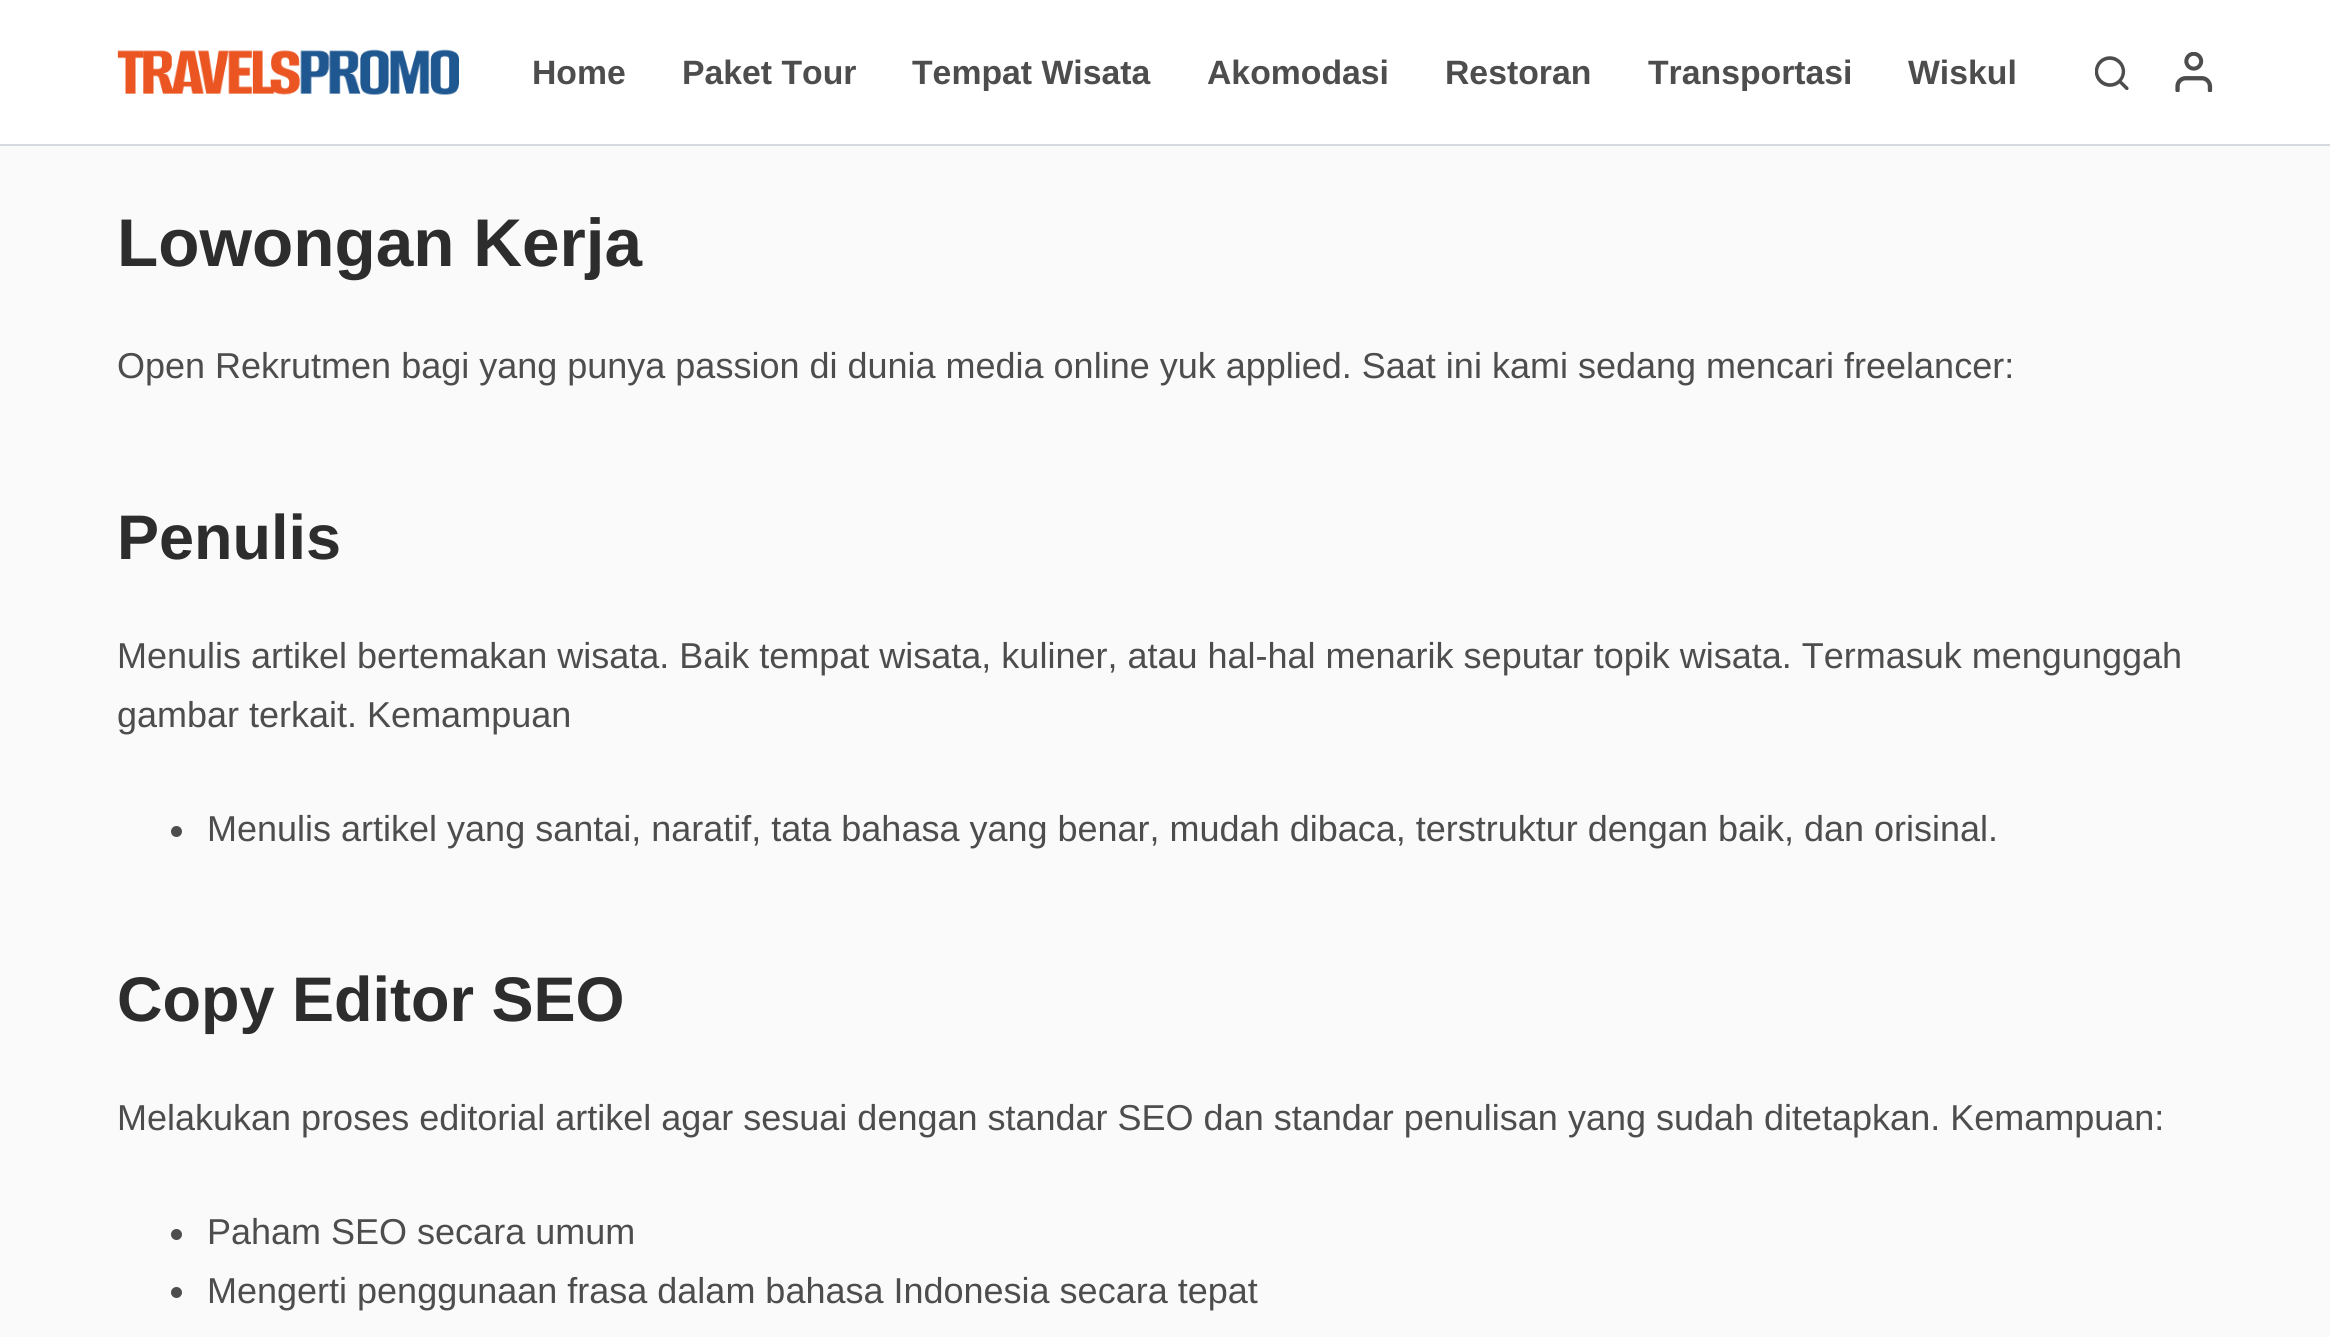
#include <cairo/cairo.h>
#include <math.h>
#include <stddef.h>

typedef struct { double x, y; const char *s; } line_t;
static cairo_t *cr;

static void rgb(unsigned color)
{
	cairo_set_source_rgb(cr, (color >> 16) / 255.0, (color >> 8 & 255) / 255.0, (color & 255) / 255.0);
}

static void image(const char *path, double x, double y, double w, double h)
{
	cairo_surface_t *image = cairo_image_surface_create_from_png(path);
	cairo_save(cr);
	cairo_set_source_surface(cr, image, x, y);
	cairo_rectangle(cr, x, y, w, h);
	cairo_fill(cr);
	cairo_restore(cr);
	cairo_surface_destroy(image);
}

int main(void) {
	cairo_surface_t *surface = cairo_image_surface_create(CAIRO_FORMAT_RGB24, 2330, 1337);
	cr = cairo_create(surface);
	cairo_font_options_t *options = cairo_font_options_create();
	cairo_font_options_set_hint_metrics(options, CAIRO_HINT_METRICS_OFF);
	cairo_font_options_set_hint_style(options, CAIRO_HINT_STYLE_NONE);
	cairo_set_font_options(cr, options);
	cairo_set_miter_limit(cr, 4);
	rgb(0xfafafa);
	cairo_paint(cr);
	rgb(0xffffff);
	cairo_rectangle(cr, 0, 0, 2330, 144);
	cairo_fill(cr);
	rgb(0xd5d8dc);
	cairo_rectangle(cr, 0, 144, 2330, 2);
	cairo_fill(cr);
	image("img/1.png", 117, 49, 342, 46);
	image("img/2.png", 2095, 56, 34, 34);
	image("img/3.png", 2175, 52, 38, 40);
	rgb(0x4d4d4d);
	cairo_arc(cr, 176.5, 831.5, 5.5, 0, 2 * M_PI);
	cairo_fill(cr);
	cairo_arc(cr, 176.5, 1234.5, 5.5, 0, 2 * M_PI);
	cairo_fill(cr);
	cairo_arc(cr, 176.5, 1292.5, 5.5, 0, 2 * M_PI);
	cairo_fill(cr);
	cairo_select_font_face(cr, "Liberation Sans", CAIRO_FONT_SLANT_NORMAL, CAIRO_FONT_WEIGHT_BOLD);
	cairo_set_font_size(cr, 33.75);
	{
		static const line_t items[] = {
			{532, 84, "Home"},
			{682, 84, "Paket Tour"},
			{912, 84, "Tempat Wisata"},
			{1207, 84, "Akomodasi"},
			{1445, 84, "Restoran"},
			{1648, 84, "Transportasi"},
			{1908, 84, "Wiskul"},
		};
		for (size_t i = 0; i < sizeof items / sizeof *items; i++) {
			cairo_move_to(cr, items[i].x, items[i].y);
			cairo_show_text(cr, items[i].s);
		}
	}
	cairo_set_font_size(cr, 67.5);
	rgb(0x2d2d2d);
	cairo_move_to(cr, 117, 266);
	cairo_show_text(cr, "Lowongan Kerja");
	cairo_select_font_face(cr, "Liberation Sans", CAIRO_FONT_SLANT_NORMAL, CAIRO_FONT_WEIGHT_NORMAL);
	cairo_set_font_size(cr, 36);
	rgb(0x4d4d4d);
	cairo_move_to(cr, 117, 378);
	cairo_show_text(cr, "Open Rekrutmen bagi yang punya passion di dunia media online yuk applied. Saat ini kami sedang mencari freelancer:");
	cairo_select_font_face(cr, "Liberation Sans", CAIRO_FONT_SLANT_NORMAL, CAIRO_FONT_WEIGHT_BOLD);
	cairo_set_font_size(cr, 63);
	rgb(0x2d2d2d);
	cairo_move_to(cr, 117, 559);
	cairo_show_text(cr, "Penulis");
	cairo_select_font_face(cr, "Liberation Sans", CAIRO_FONT_SLANT_NORMAL, CAIRO_FONT_WEIGHT_NORMAL);
	cairo_set_font_size(cr, 36);
	rgb(0x4d4d4d);
	{
		static const line_t items[] = {
			{117, 668, "Menulis artikel bertemakan wisata. Baik tempat wisata, kuliner, atau hal-hal menarik seputar topik wisata. Termasuk mengunggah"},
			{117, 727, "gambar terkait. Kemampuan"},
			{207, 841, "Menulis artikel yang santai, naratif, tata bahasa yang benar, mudah dibaca, terstruktur dengan baik, dan orisinal."},
		};
		for (size_t i = 0; i < sizeof items / sizeof *items; i++) {
			cairo_move_to(cr, items[i].x, items[i].y);
			cairo_show_text(cr, items[i].s);
		}
	}
	cairo_select_font_face(cr, "Liberation Sans", CAIRO_FONT_SLANT_NORMAL, CAIRO_FONT_WEIGHT_BOLD);
	cairo_set_font_size(cr, 63);
	rgb(0x2d2d2d);
	cairo_move_to(cr, 117, 1021);
	cairo_show_text(cr, "Copy Editor SEO");
	cairo_select_font_face(cr, "Liberation Sans", CAIRO_FONT_SLANT_NORMAL, CAIRO_FONT_WEIGHT_NORMAL);
	cairo_set_font_size(cr, 36);
	rgb(0x4d4d4d);
	{
		static const line_t items[] = {
			{117, 1130, "Melakukan proses editorial artikel agar sesuai dengan standar SEO dan standar penulisan yang sudah ditetapkan. Kemampuan:"},
			{207, 1244, "Paham SEO secara umum"},
			{207, 1303, "Mengerti penggunaan frasa dalam bahasa Indonesia secara tepat"},
		};
		for (size_t i = 0; i < sizeof items / sizeof *items; i++) {
			cairo_move_to(cr, items[i].x, items[i].y);
			cairo_show_text(cr, items[i].s);
		}
	}
	cairo_surface_write_to_png(surface, "page.png");
	cairo_font_options_destroy(options);
	cairo_destroy(cr);
	cairo_surface_destroy(surface);
	return 0;
}
